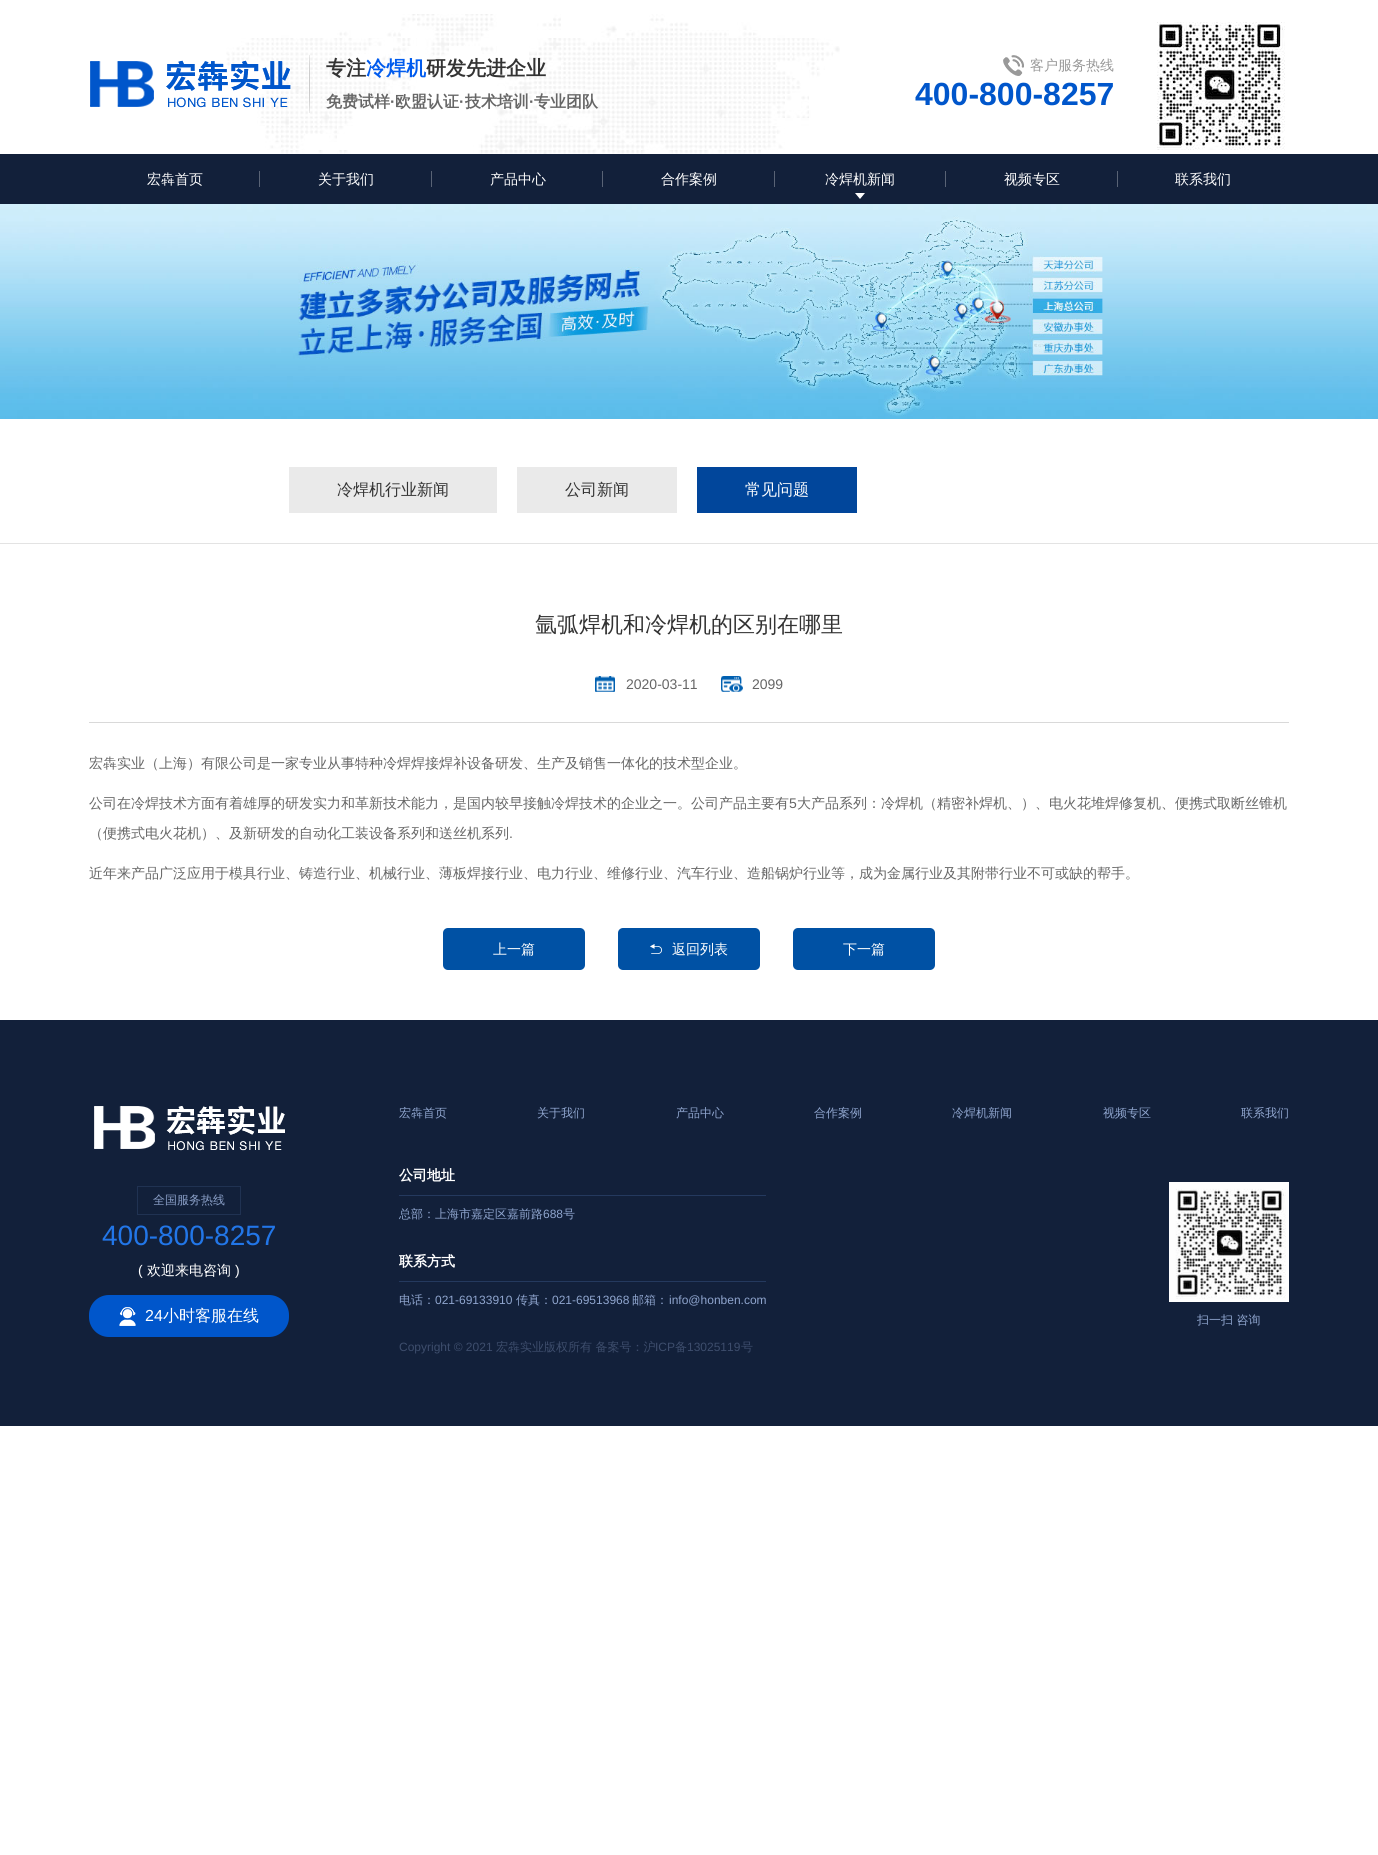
#include <cairo/cairo.h>
#include <math.h>
#include <stddef.h>

typedef struct { double x, y; const char *s; } line_t;
typedef struct { double x, y, w, h; unsigned color; } box_t;
static cairo_t *cr;

static void rgb(unsigned color)
{
	cairo_set_source_rgb(cr, (color >> 16) / 255.0, (color >> 8 & 255) / 255.0, (color & 255) / 255.0);
}

static void rrect(double x, double y, double w, double h, double r)
{
	cairo_new_sub_path(cr);
	cairo_arc(cr, x + w - r, y + h - r, r, 0, M_PI / 2);
	cairo_arc(cr, x + r, y + h - r, r, M_PI / 2, M_PI);
	cairo_arc(cr, x + r, y + r, r, M_PI, 1.5 * M_PI);
	cairo_arc(cr, x + w - r, y + r, r, 1.5 * M_PI, 2 * M_PI);
	cairo_close_path(cr);
}

static void image(const char *path, double x, double y, double w, double h)
{
	cairo_surface_t *image = cairo_image_surface_create_from_png(path);
	cairo_save(cr);
	cairo_set_source_surface(cr, image, x, y);
	cairo_rectangle(cr, x, y, w, h);
	cairo_fill(cr);
	cairo_restore(cr);
	cairo_surface_destroy(image);
}

int main(void) {
	cairo_surface_t *surface = cairo_image_surface_create(CAIRO_FORMAT_RGB24, 1378, 1855);
	cr = cairo_create(surface);
	cairo_font_options_t *options = cairo_font_options_create();
	cairo_font_options_set_hint_metrics(options, CAIRO_HINT_METRICS_OFF);
	cairo_font_options_set_hint_style(options, CAIRO_HINT_STYLE_NONE);
	cairo_set_font_options(cr, options);
	cairo_set_miter_limit(cr, 4);
	rgb(0xffffff);
	cairo_paint(cr);
	image("img/1.png", 226, 14, 614, 140);
	image("img/2.png", 90, 60, 201, 48);
	image("img/3.png", 309, 55, 1, 58);
	image("img/4.png", 1003, 55, 21, 21);
	image("img/5.png", 1157, 22, 128, 128);
	{
		static const box_t items[] = {
			{0, 154, 1378, 50, 0x12203a},
			{259, 171, 1, 16, 0x596375},
			{431, 171, 1, 16, 0x596375},
			{602, 171, 1, 16, 0x596375},
			{774, 171, 1, 16, 0x596375},
		};
		for (size_t i = 0; i < sizeof items / sizeof *items; i++) {
			rgb(items[i].color);
			cairo_rectangle(cr, items[i].x, items[i].y, items[i].w, items[i].h);
			cairo_fill(cr);
		}
	}
	image("img/6.png", 855, 193, 10, 6);
	cairo_rectangle(cr, 945, 171, 1, 16);
	cairo_fill(cr);
	cairo_rectangle(cr, 1117, 171, 1, 16);
	cairo_fill(cr);
	image("img/7.png", 0, 204, 1378, 215);
	{
		static const box_t items[] = {
			{0, 543, 1378, 1, 0xe3e3e3},
			{289, 467, 208, 46, 0xeaeaea},
			{517, 467, 160, 46, 0xeaeaea},
			{697, 467, 160, 46, 0x01469b},
			{89, 722, 1200, 1, 0xd9d9d9},
		};
		for (size_t i = 0; i < sizeof items / sizeof *items; i++) {
			rgb(items[i].color);
			cairo_rectangle(cr, items[i].x, items[i].y, items[i].w, items[i].h);
			cairo_fill(cr);
		}
	}
	image("img/8.png", 595, 676, 20, 16);
	image("img/9.png", 721, 676, 22, 16);
	rgb(0x0051a4);
	rrect(443, 928, 142, 42, 5);
	cairo_fill(cr);
	rrect(618, 928, 142, 42, 5);
	cairo_fill(cr);
	image("img/10.png", 650, 944, 12, 10);
	rrect(793, 928, 142, 42, 5);
	cairo_fill(cr);
	rgb(0x12203a);
	cairo_rectangle(cr, 0, 1020, 1378, 406);
	cairo_fill(cr);
	image("img/11.png", 94, 1105, 191, 46);
	cairo_rectangle(cr, 137.5, 1186.5, 103, 28);
	rgb(0x203252);
	cairo_set_line_width(cr, 1);
	cairo_stroke(cr);
	rgb(0x0056cb);
	rrect(89, 1295, 200, 42, 20);
	cairo_fill(cr);
	image("img/12.png", 119, 1307, 17, 19);
	rgb(0x24395e);
	cairo_rectangle(cr, 399, 1195, 367, 1);
	cairo_fill(cr);
	cairo_rectangle(cr, 399, 1281, 367, 1);
	cairo_fill(cr);
	image("img/13.png", 1169, 1182, 120, 120);
	cairo_select_font_face(cr, "WenQuanYi Zen Hei", CAIRO_FONT_SLANT_NORMAL, CAIRO_FONT_WEIGHT_BOLD);
	cairo_set_font_size(cr, 20);
	rgb(0x333333);
	cairo_move_to(cr, 326, 75);
	cairo_show_text(cr, "专注");
	rgb(0x005bee);
	cairo_move_to(cr, 366, 75);
	cairo_show_text(cr, "冷焊机");
	rgb(0x333333);
	cairo_move_to(cr, 426, 75);
	cairo_show_text(cr, "研发先进企业");
	cairo_set_font_size(cr, 16);
	rgb(0x666666);
	cairo_move_to(cr, 326, 107);
	cairo_show_text(cr, "免费试样");
	cairo_select_font_face(cr, "Liberation Sans", CAIRO_FONT_SLANT_NORMAL, CAIRO_FONT_WEIGHT_BOLD);
	cairo_move_to(cr, 390, 107);
	cairo_show_text(cr, "·");
	cairo_select_font_face(cr, "WenQuanYi Zen Hei", CAIRO_FONT_SLANT_NORMAL, CAIRO_FONT_WEIGHT_BOLD);
	cairo_move_to(cr, 395, 107);
	cairo_show_text(cr, "欧盟认证");
	cairo_select_font_face(cr, "Liberation Sans", CAIRO_FONT_SLANT_NORMAL, CAIRO_FONT_WEIGHT_BOLD);
	cairo_move_to(cr, 459, 107);
	cairo_show_text(cr, "·");
	cairo_select_font_face(cr, "WenQuanYi Zen Hei", CAIRO_FONT_SLANT_NORMAL, CAIRO_FONT_WEIGHT_BOLD);
	cairo_move_to(cr, 465, 107);
	cairo_show_text(cr, "技术培训");
	cairo_select_font_face(cr, "Liberation Sans", CAIRO_FONT_SLANT_NORMAL, CAIRO_FONT_WEIGHT_BOLD);
	cairo_move_to(cr, 529, 107);
	cairo_show_text(cr, "·");
	cairo_select_font_face(cr, "WenQuanYi Zen Hei", CAIRO_FONT_SLANT_NORMAL, CAIRO_FONT_WEIGHT_BOLD);
	cairo_move_to(cr, 534, 107);
	cairo_show_text(cr, "专业团队");
	cairo_select_font_face(cr, "WenQuanYi Zen Hei Medium", CAIRO_FONT_SLANT_NORMAL, CAIRO_FONT_WEIGHT_NORMAL);
	cairo_set_font_size(cr, 14);
	rgb(0x999999);
	cairo_move_to(cr, 1030, 70);
	cairo_show_text(cr, "客户服务热线");
	cairo_select_font_face(cr, "Liberation Sans", CAIRO_FONT_SLANT_NORMAL, CAIRO_FONT_WEIGHT_BOLD);
	cairo_set_font_size(cr, 32);
	rgb(0x0056cb);
	cairo_move_to(cr, 915, 105);
	cairo_show_text(cr, "400-800-8257");
	cairo_select_font_face(cr, "WenQuanYi Zen Hei Medium", CAIRO_FONT_SLANT_NORMAL, CAIRO_FONT_WEIGHT_NORMAL);
	cairo_set_font_size(cr, 14);
	rgb(0xffffff);
	{
		static const line_t items[] = {
			{147, 184, "宏犇首页"},
			{318, 184, "关于我们"},
			{490, 184, "产品中心"},
			{661, 184, "合作案例"},
			{825, 184, "冷焊机新闻"},
			{1004, 184, "视频专区"},
			{1175, 184, "联系我们"},
		};
		for (size_t i = 0; i < sizeof items / sizeof *items; i++) {
			cairo_move_to(cr, items[i].x, items[i].y);
			cairo_show_text(cr, items[i].s);
		}
	}
	cairo_set_font_size(cr, 16);
	rgb(0x333333);
	cairo_move_to(cr, 337, 495);
	cairo_show_text(cr, "冷焊机行业新闻");
	cairo_move_to(cr, 565, 495);
	cairo_show_text(cr, "公司新闻");
	rgb(0xffffff);
	cairo_move_to(cr, 745, 495);
	cairo_show_text(cr, "常见问题");
	cairo_set_font_size(cr, 22);
	rgb(0x333333);
	cairo_move_to(cr, 535, 632);
	cairo_show_text(cr, "氩弧焊机和冷焊机的区别在哪里");
	cairo_select_font_face(cr, "Liberation Sans", CAIRO_FONT_SLANT_NORMAL, CAIRO_FONT_WEIGHT_NORMAL);
	cairo_set_font_size(cr, 14);
	rgb(0x666666);
	cairo_move_to(cr, 626, 689);
	cairo_show_text(cr, "2020-03-11");
	cairo_move_to(cr, 752, 689);
	cairo_show_text(cr, "2099");
	cairo_select_font_face(cr, "WenQuanYi Zen Hei Medium", CAIRO_FONT_SLANT_NORMAL, CAIRO_FONT_WEIGHT_NORMAL);
	cairo_move_to(cr, 89, 768);
	cairo_show_text(cr, "宏犇实业（上海）有限公司是一家专业从事特种冷焊焊接焊补设备研发、生产及销售一体化的技术型企业。");
	cairo_move_to(cr, 89, 808);
	cairo_show_text(cr, "公司在冷焊技术方面有着雄厚的研发实力和革新技术能力，是国内较早接触冷焊技术的企业之一。公司产品主要有");
	cairo_select_font_face(cr, "Liberation Sans", CAIRO_FONT_SLANT_NORMAL, CAIRO_FONT_WEIGHT_NORMAL);
	cairo_move_to(cr, 789, 808);
	cairo_show_text(cr, "5");
	cairo_select_font_face(cr, "WenQuanYi Zen Hei Medium", CAIRO_FONT_SLANT_NORMAL, CAIRO_FONT_WEIGHT_NORMAL);
	cairo_move_to(cr, 797, 808);
	cairo_show_text(cr, "大产品系列：冷焊机（精密补焊机、）、电火花堆焊修复机、便携式取断丝锥机");
	cairo_move_to(cr, 89, 838);
	cairo_show_text(cr, "（便携式电火花机）、及新研发的自动化工装设备系列和送丝机系列");
	cairo_select_font_face(cr, "Liberation Sans", CAIRO_FONT_SLANT_NORMAL, CAIRO_FONT_WEIGHT_NORMAL);
	cairo_move_to(cr, 509, 838);
	cairo_show_text(cr, ".");
	cairo_select_font_face(cr, "WenQuanYi Zen Hei Medium", CAIRO_FONT_SLANT_NORMAL, CAIRO_FONT_WEIGHT_NORMAL);
	cairo_move_to(cr, 89, 878);
	cairo_show_text(cr, "近年来产品广泛应用于模具行业、铸造行业、机械行业、薄板焊接行业、电力行业、维修行业、汽车行业、造船锅炉行业等，成为金属行业及其附带行业不可或缺的帮手。");
	rgb(0xffffff);
	{
		static const line_t items[] = {
			{493, 954, "上一篇"},
			{672, 954, "返回列表"},
			{843, 954, "下一篇"},
		};
		for (size_t i = 0; i < sizeof items / sizeof *items; i++) {
			cairo_move_to(cr, items[i].x, items[i].y);
			cairo_show_text(cr, items[i].s);
		}
	}
	cairo_set_font_size(cr, 12);
	rgb(0x899ec6);
	cairo_move_to(cr, 153, 1204);
	cairo_show_text(cr, "全国服务热线");
	cairo_select_font_face(cr, "Liberation Sans", CAIRO_FONT_SLANT_NORMAL, CAIRO_FONT_WEIGHT_NORMAL);
	cairo_set_font_size(cr, 28);
	rgb(0x2276e8);
	cairo_move_to(cr, 102, 1245);
	cairo_show_text(cr, "400-800-8257");
	cairo_set_font_size(cr, 14);
	rgb(0xffffff);
	cairo_move_to(cr, 138, 1275);
	cairo_show_text(cr, "(");
	cairo_select_font_face(cr, "WenQuanYi Zen Hei Medium", CAIRO_FONT_SLANT_NORMAL, CAIRO_FONT_WEIGHT_NORMAL);
	cairo_move_to(cr, 147, 1275);
	cairo_show_text(cr, "欢迎来电咨询");
	cairo_select_font_face(cr, "Liberation Sans", CAIRO_FONT_SLANT_NORMAL, CAIRO_FONT_WEIGHT_NORMAL);
	cairo_move_to(cr, 235, 1275);
	cairo_show_text(cr, ")");
	cairo_set_font_size(cr, 16);
	cairo_move_to(cr, 145, 1321);
	cairo_show_text(cr, "24");
	cairo_select_font_face(cr, "WenQuanYi Zen Hei Medium", CAIRO_FONT_SLANT_NORMAL, CAIRO_FONT_WEIGHT_NORMAL);
	cairo_move_to(cr, 163, 1321);
	cairo_show_text(cr, "小时客服在线");
	cairo_set_font_size(cr, 12);
	rgb(0x8fa5ce);
	{
		static const line_t items[] = {
			{399, 1117, "宏犇首页"},
			{537, 1117, "关于我们"},
			{676, 1117, "产品中心"},
			{814, 1117, "合作案例"},
			{952, 1117, "冷焊机新闻"},
			{1103, 1117, "视频专区"},
			{1241, 1117, "联系我们"},
		};
		for (size_t i = 0; i < sizeof items / sizeof *items; i++) {
			cairo_move_to(cr, items[i].x, items[i].y);
			cairo_show_text(cr, items[i].s);
		}
	}
	cairo_select_font_face(cr, "WenQuanYi Zen Hei", CAIRO_FONT_SLANT_NORMAL, CAIRO_FONT_WEIGHT_BOLD);
	cairo_set_font_size(cr, 14);
	rgb(0xffffff);
	cairo_move_to(cr, 399, 1180);
	cairo_show_text(cr, "公司地址");
	cairo_select_font_face(cr, "WenQuanYi Zen Hei Medium", CAIRO_FONT_SLANT_NORMAL, CAIRO_FONT_WEIGHT_NORMAL);
	cairo_set_font_size(cr, 12);
	rgb(0x8fa5ce);
	cairo_move_to(cr, 399, 1218);
	cairo_show_text(cr, "总部：上海市嘉定区嘉前路");
	cairo_select_font_face(cr, "Liberation Sans", CAIRO_FONT_SLANT_NORMAL, CAIRO_FONT_WEIGHT_NORMAL);
	cairo_move_to(cr, 543, 1218);
	cairo_show_text(cr, "688");
	cairo_select_font_face(cr, "WenQuanYi Zen Hei Medium", CAIRO_FONT_SLANT_NORMAL, CAIRO_FONT_WEIGHT_NORMAL);
	cairo_move_to(cr, 563, 1218);
	cairo_show_text(cr, "号");
	cairo_select_font_face(cr, "WenQuanYi Zen Hei", CAIRO_FONT_SLANT_NORMAL, CAIRO_FONT_WEIGHT_BOLD);
	cairo_set_font_size(cr, 14);
	rgb(0xffffff);
	cairo_move_to(cr, 399, 1266);
	cairo_show_text(cr, "联系方式");
	cairo_select_font_face(cr, "WenQuanYi Zen Hei Medium", CAIRO_FONT_SLANT_NORMAL, CAIRO_FONT_WEIGHT_NORMAL);
	cairo_set_font_size(cr, 12);
	rgb(0x8fa5ce);
	cairo_move_to(cr, 399, 1304);
	cairo_show_text(cr, "电话：");
	cairo_select_font_face(cr, "Liberation Sans", CAIRO_FONT_SLANT_NORMAL, CAIRO_FONT_WEIGHT_NORMAL);
	cairo_move_to(cr, 435, 1304);
	cairo_show_text(cr, "021-69133910");
	cairo_select_font_face(cr, "WenQuanYi Zen Hei Medium", CAIRO_FONT_SLANT_NORMAL, CAIRO_FONT_WEIGHT_NORMAL);
	cairo_move_to(cr, 516, 1304);
	cairo_show_text(cr, "传真：");
	cairo_select_font_face(cr, "Liberation Sans", CAIRO_FONT_SLANT_NORMAL, CAIRO_FONT_WEIGHT_NORMAL);
	cairo_move_to(cr, 552, 1304);
	cairo_show_text(cr, "021-69513968");
	cairo_select_font_face(cr, "WenQuanYi Zen Hei Medium", CAIRO_FONT_SLANT_NORMAL, CAIRO_FONT_WEIGHT_NORMAL);
	cairo_move_to(cr, 632, 1304);
	cairo_show_text(cr, "邮箱：");
	cairo_select_font_face(cr, "Liberation Sans", CAIRO_FONT_SLANT_NORMAL, CAIRO_FONT_WEIGHT_NORMAL);
	cairo_move_to(cr, 669, 1304);
	cairo_show_text(cr, "info@honben.com");
	rgb(0x3d4d6c);
	cairo_move_to(cr, 399, 1351);
	cairo_show_text(cr, "Copyright © 2021");
	cairo_select_font_face(cr, "WenQuanYi Zen Hei Medium", CAIRO_FONT_SLANT_NORMAL, CAIRO_FONT_WEIGHT_NORMAL);
	cairo_move_to(cr, 496, 1351);
	cairo_show_text(cr, "宏犇实业版权所有 备案号：沪");
	cairo_select_font_face(cr, "Liberation Sans", CAIRO_FONT_SLANT_NORMAL, CAIRO_FONT_WEIGHT_NORMAL);
	cairo_move_to(cr, 655, 1351);
	cairo_show_text(cr, "ICP");
	cairo_select_font_face(cr, "WenQuanYi Zen Hei Medium", CAIRO_FONT_SLANT_NORMAL, CAIRO_FONT_WEIGHT_NORMAL);
	cairo_move_to(cr, 675, 1351);
	cairo_show_text(cr, "备");
	cairo_select_font_face(cr, "Liberation Sans", CAIRO_FONT_SLANT_NORMAL, CAIRO_FONT_WEIGHT_NORMAL);
	cairo_move_to(cr, 687, 1351);
	cairo_show_text(cr, "13025119");
	cairo_select_font_face(cr, "WenQuanYi Zen Hei Medium", CAIRO_FONT_SLANT_NORMAL, CAIRO_FONT_WEIGHT_NORMAL);
	cairo_move_to(cr, 741, 1351);
	cairo_show_text(cr, "号");
	rgb(0x8fa5ce);
	cairo_move_to(cr, 1197, 1324);
	cairo_show_text(cr, "扫一扫 咨询");
	cairo_surface_write_to_png(surface, "page.png");
	cairo_font_options_destroy(options);
	cairo_destroy(cr);
	cairo_surface_destroy(surface);
	return 0;
}
